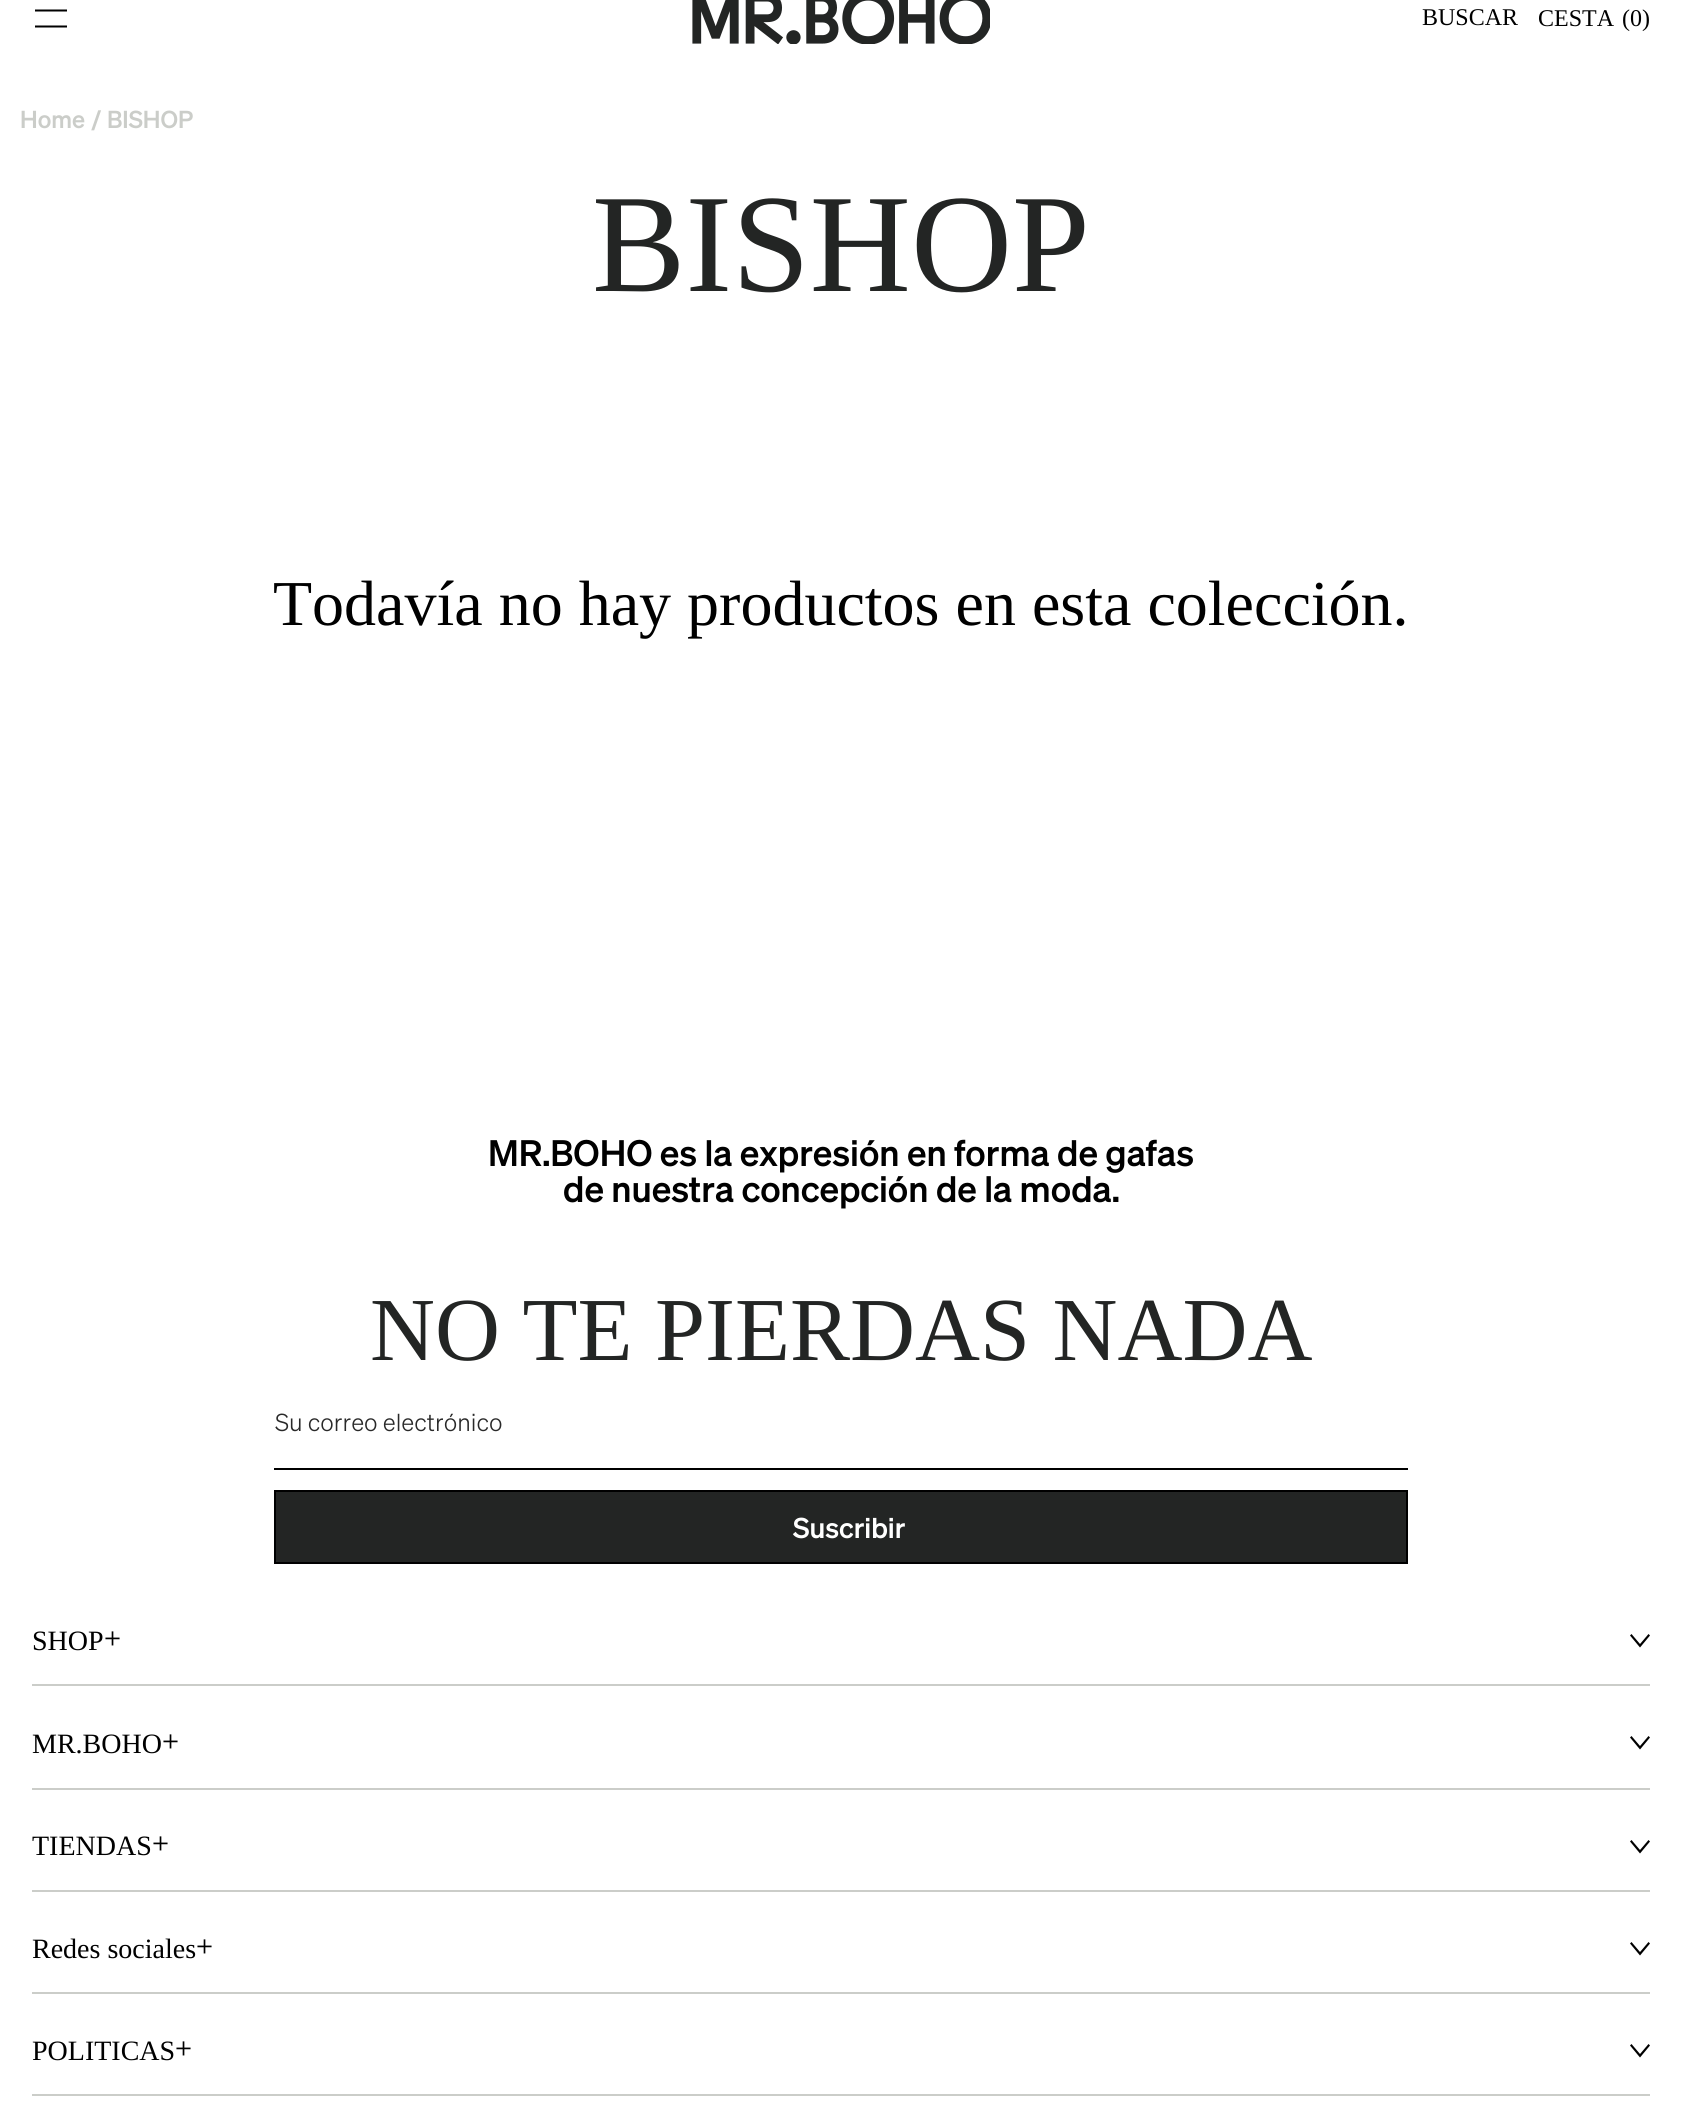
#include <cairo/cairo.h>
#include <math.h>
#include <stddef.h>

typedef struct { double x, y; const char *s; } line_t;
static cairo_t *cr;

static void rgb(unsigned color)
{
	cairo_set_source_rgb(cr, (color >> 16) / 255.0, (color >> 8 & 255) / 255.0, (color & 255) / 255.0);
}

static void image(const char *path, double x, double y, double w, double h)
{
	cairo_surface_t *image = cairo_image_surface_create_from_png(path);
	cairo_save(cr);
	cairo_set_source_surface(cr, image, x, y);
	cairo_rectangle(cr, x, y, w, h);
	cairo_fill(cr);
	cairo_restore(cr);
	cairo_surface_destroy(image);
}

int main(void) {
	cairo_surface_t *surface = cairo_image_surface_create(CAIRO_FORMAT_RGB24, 1682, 2116);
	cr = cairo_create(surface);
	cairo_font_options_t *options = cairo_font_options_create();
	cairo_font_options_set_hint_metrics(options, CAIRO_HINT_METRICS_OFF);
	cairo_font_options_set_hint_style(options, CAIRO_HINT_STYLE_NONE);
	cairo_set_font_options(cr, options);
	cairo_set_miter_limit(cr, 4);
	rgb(0xffffff);
	cairo_paint(cr);
	cairo_new_path(cr);
	cairo_move_to(cr, 35, 10.5);
	cairo_line_to(cr, 67, 10.5);
	cairo_move_to(cr, 35, 26.5);
	cairo_line_to(cr, 67, 26.5);
	rgb(0x000000);
	cairo_stroke(cr);
	image("img/1.png", 692, 0, 298, 44);
	cairo_rectangle(cr, 274, 1468, 1134, 2);
	cairo_fill(cr);
	rgb(0x232524);
	cairo_rectangle(cr, 275, 1491, 1132, 72);
	cairo_fill_preserve(cr);
	rgb(0x000000);
	cairo_stroke(cr);
	rgb(0xcbcdc9);
	cairo_rectangle(cr, 32, 1684, 1618, 2);
	cairo_fill(cr);
	rgb(0x000000);
	cairo_new_path(cr);
	cairo_move_to(cr, 1640, 1644);
	cairo_line_to(cr, 1631.5, 1634);
	cairo_line_to(cr, 1630, 1635.5);
	cairo_line_to(cr, 1640, 1647.5);
	cairo_line_to(cr, 1650, 1635.5);
	cairo_line_to(cr, 1648.5, 1634);
	cairo_close_path(cr);
	cairo_fill(cr);
	rgb(0xcbcdc9);
	cairo_rectangle(cr, 32, 1788, 1618, 2);
	cairo_fill(cr);
	rgb(0x000000);
	cairo_new_path(cr);
	cairo_move_to(cr, 1640, 1746);
	cairo_line_to(cr, 1631.5, 1736);
	cairo_line_to(cr, 1630, 1737.5);
	cairo_line_to(cr, 1640, 1749.5);
	cairo_line_to(cr, 1650, 1737.5);
	cairo_line_to(cr, 1648.5, 1736);
	cairo_close_path(cr);
	cairo_fill(cr);
	rgb(0xcbcdc9);
	cairo_rectangle(cr, 32, 1890, 1618, 2);
	cairo_fill(cr);
	rgb(0x000000);
	cairo_new_path(cr);
	cairo_move_to(cr, 1640, 1850);
	cairo_line_to(cr, 1631.5, 1840);
	cairo_line_to(cr, 1630, 1841.5);
	cairo_line_to(cr, 1640, 1853.5);
	cairo_line_to(cr, 1650, 1841.5);
	cairo_line_to(cr, 1648.5, 1840);
	cairo_close_path(cr);
	cairo_fill(cr);
	rgb(0xcbcdc9);
	cairo_rectangle(cr, 32, 1992, 1618, 2);
	cairo_fill(cr);
	rgb(0x000000);
	cairo_new_path(cr);
	cairo_move_to(cr, 1640, 1952);
	cairo_line_to(cr, 1631.5, 1942);
	cairo_line_to(cr, 1630, 1943.5);
	cairo_line_to(cr, 1640, 1955.5);
	cairo_line_to(cr, 1650, 1943.5);
	cairo_line_to(cr, 1648.5, 1942);
	cairo_close_path(cr);
	cairo_fill(cr);
	rgb(0xcbcdc9);
	cairo_rectangle(cr, 32, 2094, 1618, 2);
	cairo_fill(cr);
	rgb(0x000000);
	cairo_new_path(cr);
	cairo_move_to(cr, 1640, 2054);
	cairo_line_to(cr, 1631.5, 2044);
	cairo_line_to(cr, 1630, 2045.5);
	cairo_line_to(cr, 1640, 2057.5);
	cairo_line_to(cr, 1650, 2045.5);
	cairo_line_to(cr, 1648.5, 2044);
	cairo_close_path(cr);
	cairo_fill(cr);
	cairo_select_font_face(cr, "Liberation Serif", CAIRO_FONT_SLANT_NORMAL, CAIRO_FONT_WEIGHT_NORMAL);
	cairo_set_font_size(cr, 24);
	{
		static const line_t items[] = {
			{1422, 25, "BUSCAR"},
			{1538, 26, "CESTA"},
			{1622, 26, "(0)"},
		};
		for (size_t i = 0; i < sizeof items / sizeof *items; i++) {
			cairo_move_to(cr, items[i].x, items[i].y);
			cairo_show_text(cr, items[i].s);
		}
	}
	cairo_select_font_face(cr, "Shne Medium", CAIRO_FONT_SLANT_NORMAL, CAIRO_FONT_WEIGHT_NORMAL);
	rgb(0xcbcdc9);
	{
		static const line_t items[] = {
			{20, 128, "Home"},
			{91, 128, "/"},
			{107, 128, "BISHOP"},
		};
		for (size_t i = 0; i < sizeof items / sizeof *items; i++) {
			cairo_move_to(cr, items[i].x, items[i].y);
			cairo_show_text(cr, items[i].s);
		}
	}
	cairo_select_font_face(cr, "Liberation Serif", CAIRO_FONT_SLANT_NORMAL, CAIRO_FONT_WEIGHT_NORMAL);
	cairo_set_font_size(cr, 140);
	rgb(0x232524);
	cairo_move_to(cr, 592, 291);
	cairo_show_text(cr, "BISHOP");
	cairo_set_font_size(cr, 64);
	rgb(0x000000);
	cairo_move_to(cr, 273, 625);
	cairo_show_text(cr, "Todavía no hay productos en esta colección.");
	cairo_select_font_face(cr, "Shne Medium", CAIRO_FONT_SLANT_NORMAL, CAIRO_FONT_WEIGHT_NORMAL);
	cairo_set_font_size(cr, 36);
	cairo_move_to(cr, 488, 1166);
	cairo_show_text(cr, "MR.BOHO es la expresión en forma de gafas");
	cairo_move_to(cr, 563, 1202);
	cairo_show_text(cr, "de nuestra concepción de la moda.");
	cairo_select_font_face(cr, "Liberation Serif", CAIRO_FONT_SLANT_NORMAL, CAIRO_FONT_WEIGHT_NORMAL);
	cairo_set_font_size(cr, 90);
	rgb(0x232524);
	cairo_move_to(cr, 370, 1360);
	cairo_show_text(cr, "NO TE PIERDAS NADA");
	cairo_select_font_face(cr, "Shne Light", CAIRO_FONT_SLANT_NORMAL, CAIRO_FONT_WEIGHT_NORMAL);
	cairo_set_font_size(cr, 24);
	rgb(0x292929);
	cairo_move_to(cr, 275, 1431);
	cairo_show_text(cr, "Su correo electrónico");
	cairo_select_font_face(cr, "Shne Medium", CAIRO_FONT_SLANT_NORMAL, CAIRO_FONT_WEIGHT_NORMAL);
	cairo_set_font_size(cr, 28);
	rgb(0xffffff);
	cairo_move_to(cr, 793, 1538);
	cairo_show_text(cr, "Suscribir");
	cairo_select_font_face(cr, "Liberation Serif", CAIRO_FONT_SLANT_NORMAL, CAIRO_FONT_WEIGHT_NORMAL);
	rgb(0x000000);
	cairo_move_to(cr, 32, 1650);
	cairo_show_text(cr, "SHOP");
	cairo_select_font_face(cr, "Shne Light", CAIRO_FONT_SLANT_NORMAL, CAIRO_FONT_WEIGHT_NORMAL);
	cairo_move_to(cr, 104, 1648);
	cairo_show_text(cr, "+");
	cairo_select_font_face(cr, "Liberation Serif", CAIRO_FONT_SLANT_NORMAL, CAIRO_FONT_WEIGHT_NORMAL);
	cairo_move_to(cr, 32, 1753);
	cairo_show_text(cr, "MR.BOHO");
	cairo_select_font_face(cr, "Shne Light", CAIRO_FONT_SLANT_NORMAL, CAIRO_FONT_WEIGHT_NORMAL);
	cairo_move_to(cr, 162, 1751);
	cairo_show_text(cr, "+");
	cairo_select_font_face(cr, "Liberation Serif", CAIRO_FONT_SLANT_NORMAL, CAIRO_FONT_WEIGHT_NORMAL);
	cairo_move_to(cr, 32, 1855);
	cairo_show_text(cr, "TIENDAS");
	cairo_select_font_face(cr, "Shne Light", CAIRO_FONT_SLANT_NORMAL, CAIRO_FONT_WEIGHT_NORMAL);
	cairo_move_to(cr, 152, 1853);
	cairo_show_text(cr, "+");
	cairo_select_font_face(cr, "Liberation Serif", CAIRO_FONT_SLANT_NORMAL, CAIRO_FONT_WEIGHT_NORMAL);
	cairo_move_to(cr, 32, 1958);
	cairo_show_text(cr, "Redes sociales");
	cairo_select_font_face(cr, "Shne Light", CAIRO_FONT_SLANT_NORMAL, CAIRO_FONT_WEIGHT_NORMAL);
	cairo_move_to(cr, 196, 1956);
	cairo_show_text(cr, "+");
	cairo_select_font_face(cr, "Liberation Serif", CAIRO_FONT_SLANT_NORMAL, CAIRO_FONT_WEIGHT_NORMAL);
	cairo_move_to(cr, 32, 2060);
	cairo_show_text(cr, "POLITICAS");
	cairo_select_font_face(cr, "Shne Light", CAIRO_FONT_SLANT_NORMAL, CAIRO_FONT_WEIGHT_NORMAL);
	cairo_move_to(cr, 175, 2058);
	cairo_show_text(cr, "+");
	cairo_surface_write_to_png(surface, "page.png");
	cairo_font_options_destroy(options);
	cairo_destroy(cr);
	cairo_surface_destroy(surface);
	return 0;
}
